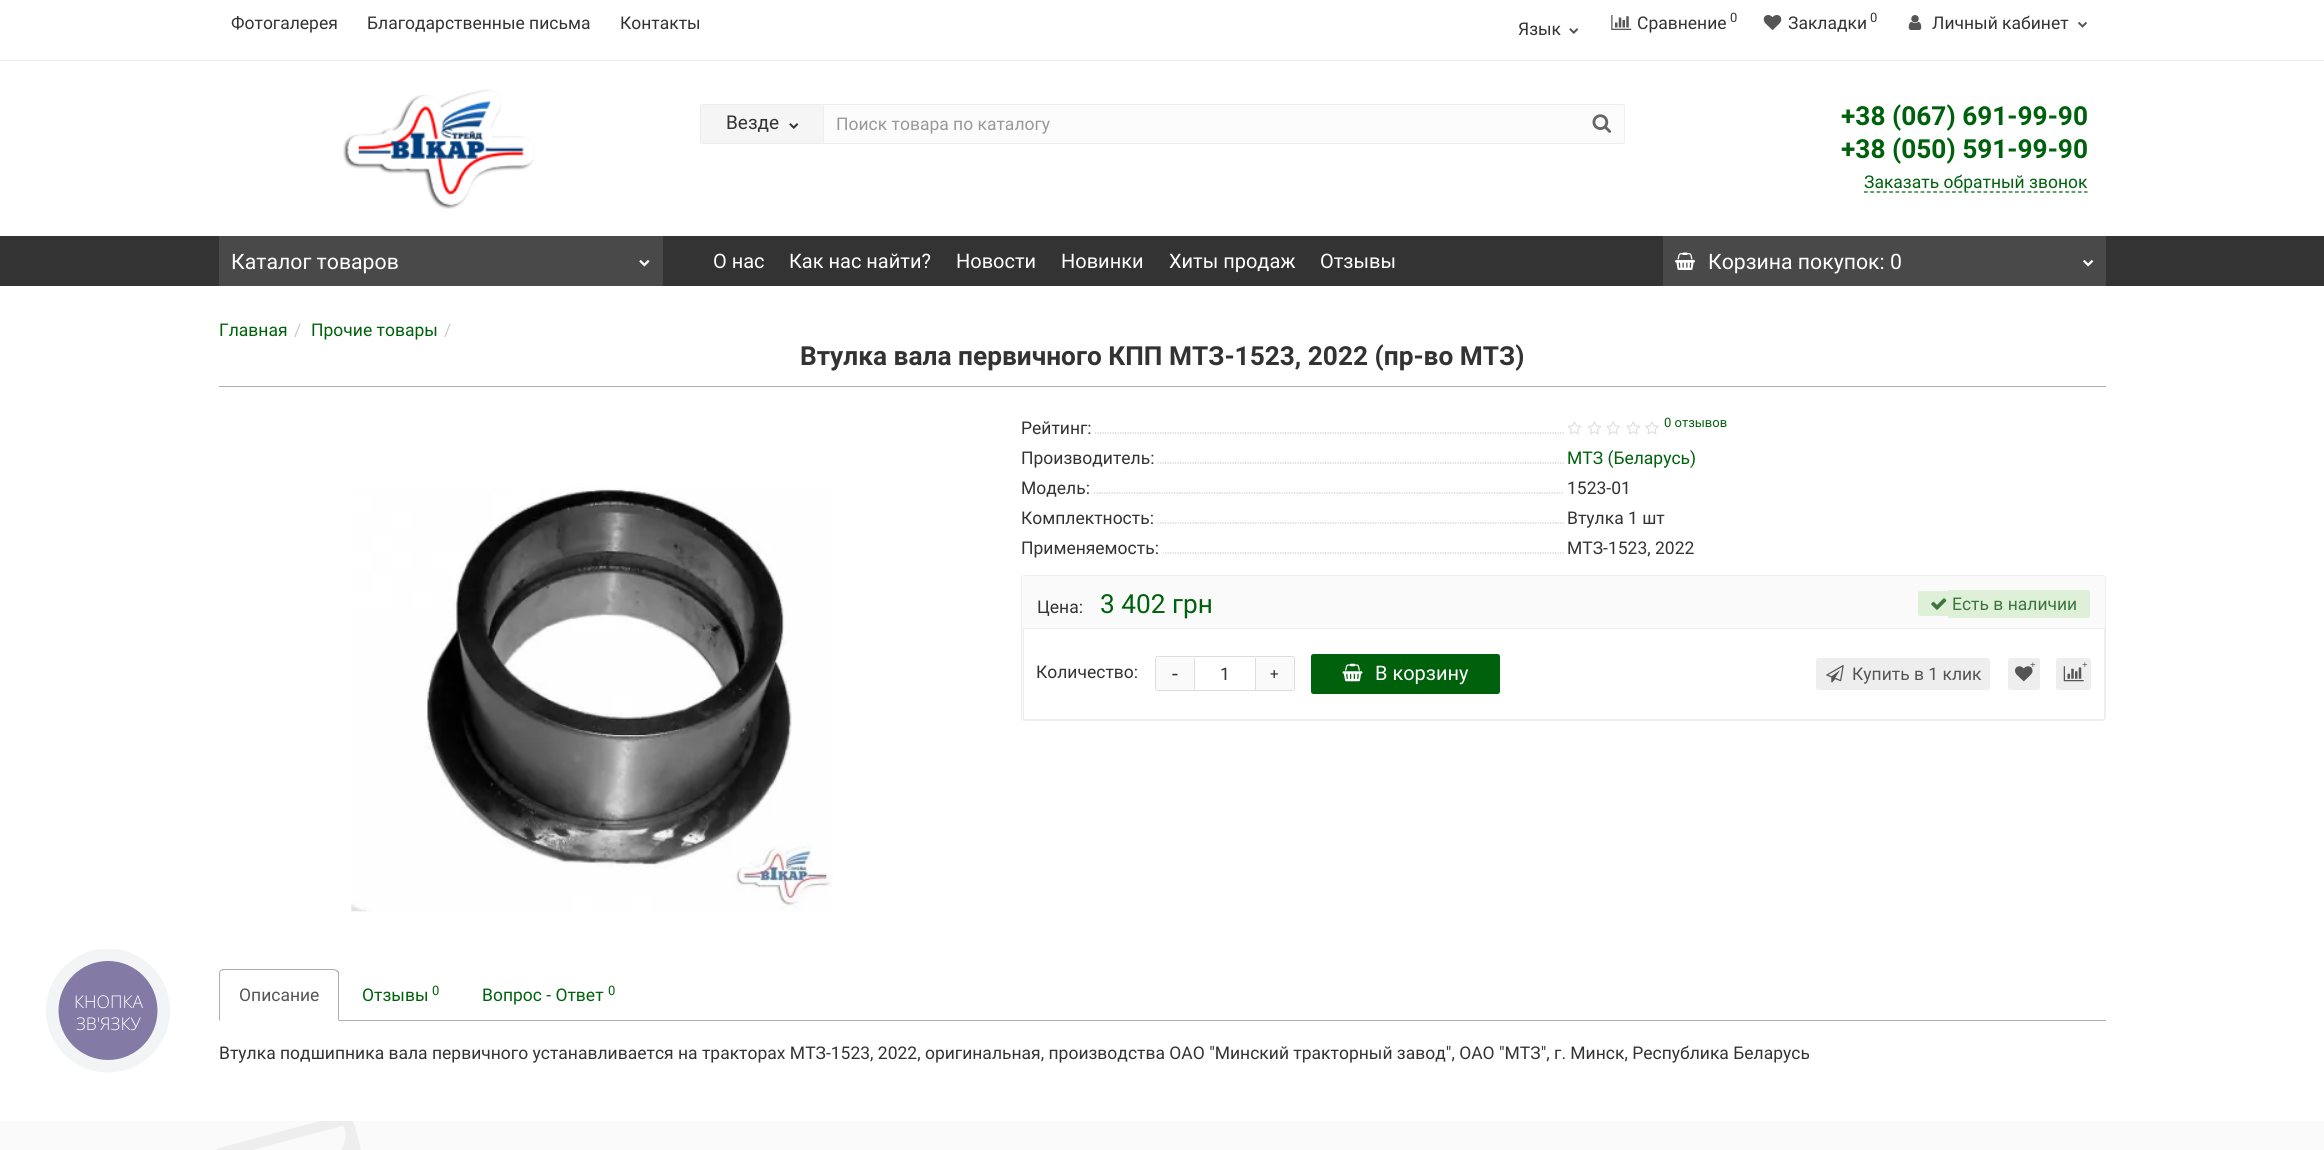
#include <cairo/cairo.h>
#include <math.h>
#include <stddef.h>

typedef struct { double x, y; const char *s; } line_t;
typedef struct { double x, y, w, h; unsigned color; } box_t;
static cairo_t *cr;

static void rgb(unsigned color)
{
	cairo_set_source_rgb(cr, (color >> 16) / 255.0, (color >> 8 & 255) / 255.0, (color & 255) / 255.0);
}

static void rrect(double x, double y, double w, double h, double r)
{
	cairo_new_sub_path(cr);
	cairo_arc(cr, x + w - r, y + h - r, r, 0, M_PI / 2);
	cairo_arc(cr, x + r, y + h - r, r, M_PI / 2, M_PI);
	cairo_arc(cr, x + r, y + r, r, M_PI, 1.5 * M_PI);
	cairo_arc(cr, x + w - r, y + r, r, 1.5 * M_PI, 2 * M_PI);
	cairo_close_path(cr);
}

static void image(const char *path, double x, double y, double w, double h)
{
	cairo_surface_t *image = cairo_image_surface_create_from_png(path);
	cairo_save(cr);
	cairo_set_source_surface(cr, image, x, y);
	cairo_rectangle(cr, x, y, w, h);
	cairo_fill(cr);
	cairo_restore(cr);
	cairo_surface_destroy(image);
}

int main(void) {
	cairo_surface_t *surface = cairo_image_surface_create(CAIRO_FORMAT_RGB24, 2324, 1150);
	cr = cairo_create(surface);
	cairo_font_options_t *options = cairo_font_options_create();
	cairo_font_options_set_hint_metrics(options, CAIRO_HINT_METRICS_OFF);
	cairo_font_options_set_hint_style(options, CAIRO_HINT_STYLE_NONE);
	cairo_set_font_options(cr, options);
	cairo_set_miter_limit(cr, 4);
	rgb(0xffffff);
	cairo_paint(cr);
	cairo_save(cr);
	cairo_rectangle(cr, 46, 949, 124, 124);
	cairo_clip(cr);
	rgb(0xf2f4f5);
	cairo_arc(cr, 108, 1010.5, 62, 0, 2 * M_PI);
	cairo_fill(cr);
	cairo_restore(cr);
	rgb(0x837ba6);
	cairo_arc(cr, 108, 1010.5, 49.5, 0, 2 * M_PI);
	cairo_fill(cr);
	rgb(0xededed);
	cairo_rectangle(cr, 0, 60, 2324, 1);
	cairo_fill(cr);
	image("img/1.png", 1569, 28, 10, 6);
	image("img/2.png", 1611, 15, 21, 15);
	image("img/3.png", 1763, 15, 19, 15);
	image("img/4.png", 1908, 15, 14, 15);
	image("img/5.png", 2078, 22, 9, 6);
	image("img/6.png", 343, 89, 192, 120);
	rgb(0xfcfcfc);
	rrect(700.5, 104.5, 924, 39, 2);
	cairo_fill_preserve(cr);
	rgb(0xededed);
	cairo_set_line_width(cr, 1);
	cairo_stroke(cr);
	rgb(0xf5f5f5);
	rrect(701, 105, 123, 38, 2.5);
	cairo_fill(cr);
	image("img/7.png", 789, 123, 10, 6);
	rgb(0xededed);
	cairo_rectangle(cr, 823, 105, 1, 38);
	cairo_fill(cr);
	image("img/8.png", 1592, 114, 20, 19);
	cairo_new_path(cr);
	cairo_move_to(cr, 1864, 192);
	cairo_line_to(cr, 2087.5, 192);
	rgb(0x00610c);
	cairo_set_line_width(cr, 1.2);
	cairo_set_dash(cr, (double[]){3.75, 2.54}, 2, 0);
	cairo_stroke(cr);
	rgb(0x333333);
	cairo_rectangle(cr, 0, 236, 2324, 50);
	cairo_fill(cr);
	rgb(0x494949);
	cairo_rectangle(cr, 219, 236, 444, 50);
	cairo_fill(cr);
	image("img/9.png", 639, 260, 11, 7);
	cairo_rectangle(cr, 1663, 236, 443, 50);
	cairo_fill(cr);
	image("img/10.png", 1675, 252, 20, 18);
	image("img/11.png", 2083, 260, 11, 7);
	rgb(0xadadad);
	cairo_rectangle(cr, 219, 386, 1887, 1);
	cairo_fill(cr);
	image("img/12.png", 351, 487, 482, 425);
	cairo_save(cr);
	cairo_rectangle(cr, 1021, 413, 543, 30);
	cairo_clip(cr);
	cairo_new_path(cr);
	cairo_move_to(cr, 1095, 433);
	cairo_line_to(cr, 1637.5, 433);
	rgb(0xcccccc);
	cairo_set_dash(cr, (double[]){1.25, 1.25}, 2, 0);
	cairo_stroke(cr);
	cairo_restore(cr);
	image("img/13.png", 1567, 421, 15, 14);
	image("img/13.png", 1587, 421, 15, 14);
	image("img/14.png", 1606, 421, 14, 14);
	image("img/14.png", 1626, 421, 14, 14);
	image("img/15.png", 1645, 421, 14, 14);
	cairo_save(cr);
	cairo_rectangle(cr, 1021, 443, 543, 30);
	cairo_clip(cr);
	cairo_new_path(cr);
	cairo_move_to(cr, 1157.5, 463);
	cairo_line_to(cr, 1701, 463);
	rgb(0xcccccc);
	cairo_set_dash(cr, (double[]){1.25, 1.25}, 2, 0);
	cairo_stroke(cr);
	cairo_restore(cr);
	cairo_save(cr);
	cairo_rectangle(cr, 1021, 473, 543, 30);
	cairo_clip(cr);
	cairo_new_path(cr);
	cairo_move_to(cr, 1094, 493);
	cairo_line_to(cr, 1636, 493);
	rgb(0xcccccc);
	cairo_set_dash(cr, (double[]){1.25, 1.25}, 2, 0);
	cairo_stroke(cr);
	cairo_restore(cr);
	cairo_save(cr);
	cairo_rectangle(cr, 1021, 503, 543, 30);
	cairo_clip(cr);
	cairo_new_path(cr);
	cairo_move_to(cr, 1157.5, 523);
	cairo_line_to(cr, 1700, 523);
	rgb(0xcccccc);
	cairo_set_dash(cr, (double[]){1.25, 1.25}, 2, 0);
	cairo_stroke(cr);
	cairo_restore(cr);
	cairo_save(cr);
	cairo_rectangle(cr, 1021, 533, 543, 30);
	cairo_clip(cr);
	cairo_new_path(cr);
	cairo_move_to(cr, 1162.5, 553);
	cairo_line_to(cr, 1705, 553);
	rgb(0xcccccc);
	cairo_set_dash(cr, (double[]){1.25, 1.25}, 2, 0);
	cairo_stroke(cr);
	cairo_restore(cr);
	rgb(0xfafafa);
	rrect(1021.5, 575.5, 1084, 145, 3.5);
	cairo_fill_preserve(cr);
	rgb(0xeeeeee);
	cairo_set_line_width(cr, 1);
	cairo_set_dash(cr, NULL, 0, 0);
	cairo_stroke(cr);
	rgb(0xdff0d8);
	cairo_new_path(cr);
	cairo_move_to(cr, 1920.5, 591);
	cairo_line_to(cr, 1948, 591);
	cairo_line_to(cr, 1948, 616);
	cairo_line_to(cr, 1920.5, 616);
	cairo_curve_to(cr, 1919, 616, 1918, 615, 1918, 613.5);
	cairo_line_to(cr, 1918, 593.5);
	cairo_curve_to(cr, 1918, 592, 1919, 591, 1920.5, 591);
	cairo_close_path(cr);
	cairo_fill(cr);
	cairo_new_path(cr);
	cairo_move_to(cr, 1948, 590);
	cairo_line_to(cr, 2087.5, 590);
	cairo_curve_to(cr, 2089, 590, 2090, 591, 2090, 592.5);
	cairo_line_to(cr, 2090, 615.5);
	cairo_curve_to(cr, 2090, 617, 2089, 618, 2087.5, 618);
	cairo_line_to(cr, 1948, 618);
	cairo_close_path(cr);
	cairo_fill(cr);
	image("img/16.png", 1931, 598, 16, 12);
	rgb(0xffffff);
	cairo_rectangle(cr, 1023.5, 628.5, 1081, 91);
	cairo_fill_preserve(cr);
	rgb(0xeeeeee);
	cairo_stroke(cr);
	rrect(1155.5, 656.5, 139, 34, 2);
	rgb(0xdddddd);
	cairo_stroke(cr);
	{
		static const box_t items[] = {
			{1255, 658, 1, 32, 0xdddddd},
			{1194, 658, 1, 32, 0xdddddd},
			{1156, 658, 38, 32, 0xfafafa},
			{1256, 658, 38, 32, 0xfafafa},
		};
		for (size_t i = 0; i < sizeof items / sizeof *items; i++) {
			rgb(items[i].color);
			cairo_rectangle(cr, items[i].x, items[i].y, items[i].w, items[i].h);
			cairo_fill(cr);
		}
	}
	rgb(0x00610c);
	rrect(1311, 654, 189, 40, 2.5);
	cairo_fill(cr);
	image("img/17.png", 1342, 663, 21, 19);
	rgb(0xeeeeee);
	rrect(2009.5, 659.5, 29, 29, 1);
	cairo_fill_preserve(cr);
	cairo_set_line_width(cr, 3);
	cairo_stroke(cr);
	image("img/18.png", 2015, 666, 18, 16);
	rrect(2057.5, 659.5, 32, 29, 1);
	cairo_fill_preserve(cr);
	cairo_stroke(cr);
	image("img/19.png", 2063, 666, 21, 16);
	rrect(1817.5, 659.5, 171, 29, 1);
	cairo_fill_preserve(cr);
	cairo_stroke(cr);
	image("img/20.png", 1826, 665, 18, 18);
	rgb(0xadadad);
	cairo_rectangle(cr, 339, 1020, 1767, 1);
	cairo_fill(cr);
	cairo_new_path(cr);
	cairo_move_to(cr, 224, 969);
	cairo_curve_to(cr, 222, 969, 221, 970, 220, 970);
	cairo_line_to(cr, 221, 971);
	cairo_line_to(cr, 224, 970);
	cairo_line_to(cr, 334, 970);
	cairo_line_to(cr, 336, 971);
	cairo_line_to(cr, 337, 970);
	cairo_line_to(cr, 334, 969);
	cairo_close_path(cr);
	cairo_fill(cr);
	cairo_new_path(cr);
	cairo_move_to(cr, 337, 970);
	cairo_line_to(cr, 339, 972);
	cairo_line_to(cr, 339, 1021);
	cairo_line_to(cr, 338, 1020);
	cairo_line_to(cr, 338, 973);
	cairo_line_to(cr, 336, 971);
	cairo_close_path(cr);
	cairo_fill(cr);
	cairo_new_path(cr);
	cairo_move_to(cr, 220, 970);
	cairo_curve_to(cr, 220, 971, 219, 972, 219, 974);
	cairo_line_to(cr, 219, 1021);
	cairo_line_to(cr, 220, 1020);
	cairo_line_to(cr, 220, 974);
	cairo_curve_to(cr, 220, 973, 220, 972, 221, 971);
	cairo_close_path(cr);
	cairo_fill(cr);
	rgb(0xfafafa);
	cairo_rectangle(cr, 0, 1121, 2324, 29);
	cairo_fill(cr);
	image("img/21.png", 216, 1121, 145, 29);
	cairo_select_font_face(cr, "Open Sans Light", CAIRO_FONT_SLANT_NORMAL, CAIRO_FONT_WEIGHT_NORMAL);
	cairo_set_font_size(cr, 17.5);
	rgb(0xffffff);
	cairo_move_to(cr, 74, 1008);
	cairo_show_text(cr, "КНОПКА");
	cairo_move_to(cr, 76, 1030);
	cairo_show_text(cr, "ЗВ'ЯЗКУ");
	cairo_select_font_face(cr, "Roboto", CAIRO_FONT_SLANT_NORMAL, CAIRO_FONT_WEIGHT_NORMAL);
	rgb(0x333333);
	{
		static const line_t items[] = {
			{231, 29, "Фотогалерея"},
			{367, 29, "Благодарственные письма"},
			{620, 29, "Контакты"},
			{1518, 35, "Язык"},
			{1637, 29, "Сравнение"},
		};
		for (size_t i = 0; i < sizeof items / sizeof *items; i++) {
			cairo_move_to(cr, items[i].x, items[i].y);
			cairo_show_text(cr, items[i].s);
		}
	}
	cairo_set_font_size(cr, 13);
	cairo_move_to(cr, 1730, 22);
	cairo_show_text(cr, "0");
	cairo_set_font_size(cr, 17.5);
	cairo_move_to(cr, 1788, 29);
	cairo_show_text(cr, "Закладки");
	cairo_set_font_size(cr, 13);
	cairo_move_to(cr, 1870, 22);
	cairo_show_text(cr, "0");
	cairo_set_font_size(cr, 17.5);
	cairo_move_to(cr, 1932, 29);
	cairo_show_text(cr, "Личный кабинет");
	cairo_set_font_size(cr, 19);
	cairo_move_to(cr, 726, 129);
	cairo_show_text(cr, "Везде");
	cairo_set_font_size(cr, 17.5);
	rgb(0x999999);
	cairo_move_to(cr, 836, 130);
	cairo_show_text(cr, "Поиск товара по каталогу");
	cairo_select_font_face(cr, "Roboto", CAIRO_FONT_SLANT_NORMAL, CAIRO_FONT_WEIGHT_BOLD);
	cairo_set_font_size(cr, 26.25);
	rgb(0x00610c);
	cairo_move_to(cr, 1841, 125);
	cairo_show_text(cr, "+38 (067) 691-99-90");
	cairo_move_to(cr, 1841, 158);
	cairo_show_text(cr, "+38 (050) 591-99-90");
	cairo_select_font_face(cr, "Roboto", CAIRO_FONT_SLANT_NORMAL, CAIRO_FONT_WEIGHT_NORMAL);
	cairo_set_font_size(cr, 17.5);
	cairo_move_to(cr, 1864, 188);
	cairo_show_text(cr, "Заказать обратный звонок");
	cairo_set_font_size(cr, 21.25);
	rgb(0xffffff);
	cairo_move_to(cr, 231, 269);
	cairo_show_text(cr, "Каталог товаров");
	cairo_set_font_size(cr, 20);
	{
		static const line_t items[] = {
			{713, 268, "О нас"},
			{789, 268, "Как нас найти?"},
			{956, 268, "Новости"},
			{1061, 268, "Новинки"},
			{1169, 268, "Хиты продаж"},
			{1320, 268, "Отзывы"},
		};
		for (size_t i = 0; i < sizeof items / sizeof *items; i++) {
			cairo_move_to(cr, items[i].x, items[i].y);
			cairo_show_text(cr, items[i].s);
		}
	}
	cairo_set_font_size(cr, 21.25);
	cairo_move_to(cr, 1708, 269);
	cairo_show_text(cr, "Корзина покупок: 0");
	cairo_set_font_size(cr, 17.5);
	rgb(0x00610c);
	cairo_move_to(cr, 219, 336);
	cairo_show_text(cr, "Главная");
	rgb(0xcccccc);
	cairo_move_to(cr, 294, 336);
	cairo_show_text(cr, "/");
	rgb(0x00610c);
	cairo_move_to(cr, 311, 336);
	cairo_show_text(cr, "Прочие товары");
	rgb(0xcccccc);
	cairo_move_to(cr, 444, 336);
	cairo_show_text(cr, "/");
	cairo_select_font_face(cr, "Roboto", CAIRO_FONT_SLANT_NORMAL, CAIRO_FONT_WEIGHT_BOLD);
	cairo_set_font_size(cr, 26.25);
	rgb(0x333333);
	cairo_move_to(cr, 800, 365);
	cairo_show_text(cr, "Втулка вала первичного КПП МТЗ-1523, 2022 (пр-во МТЗ)");
	cairo_select_font_face(cr, "Roboto", CAIRO_FONT_SLANT_NORMAL, CAIRO_FONT_WEIGHT_NORMAL);
	cairo_set_font_size(cr, 17.5);
	cairo_move_to(cr, 1021, 434);
	cairo_show_text(cr, "Рейтинг:");
	cairo_set_font_size(cr, 13);
	rgb(0x00610c);
	cairo_move_to(cr, 1664, 427);
	cairo_show_text(cr, "0 отзывов");
	cairo_set_font_size(cr, 17.5);
	rgb(0x333333);
	cairo_move_to(cr, 1021, 464);
	cairo_show_text(cr, "Производитель:");
	rgb(0x00610c);
	cairo_move_to(cr, 1567, 464);
	cairo_show_text(cr, "МТЗ (Беларусь)");
	rgb(0x333333);
	{
		static const line_t items[] = {
			{1021, 494, "Модель:"},
			{1567, 494, "1523-01"},
			{1021, 524, "Комплектность:"},
			{1567, 524, "Втулка 1 шт"},
			{1021, 554, "Применяемость:"},
			{1567, 554, "МТЗ-1523, 2022"},
			{1037, 613, "Цена:"},
		};
		for (size_t i = 0; i < sizeof items / sizeof *items; i++) {
			cairo_move_to(cr, items[i].x, items[i].y);
			cairo_show_text(cr, items[i].s);
		}
	}
	cairo_set_font_size(cr, 26.25);
	rgb(0x00610c);
	cairo_move_to(cr, 1100, 613);
	cairo_show_text(cr, "3 402 грн");
	cairo_set_font_size(cr, 17.5);
	rgb(0x3c763d);
	cairo_move_to(cr, 1952, 610);
	cairo_show_text(cr, "Есть в наличии");
	rgb(0x333333);
	cairo_move_to(cr, 1036, 678);
	cairo_show_text(cr, "Количество:");
	cairo_move_to(cr, 1220, 680);
	cairo_show_text(cr, "1");
	cairo_set_font_size(cr, 21.25);
	cairo_move_to(cr, 1172, 681);
	cairo_show_text(cr, "-");
	cairo_set_font_size(cr, 15);
	cairo_move_to(cr, 1270, 679);
	cairo_show_text(cr, "+");
	cairo_set_font_size(cr, 20);
	rgb(0xffffff);
	cairo_move_to(cr, 1375, 680);
	cairo_show_text(cr, "В корзину");
	cairo_select_font_face(cr, "Liberation Serif", CAIRO_FONT_SLANT_NORMAL, CAIRO_FONT_WEIGHT_BOLD);
	cairo_set_font_size(cr, 10);
	rgb(0x555555);
	cairo_move_to(cr, 2030, 668);
	cairo_show_text(cr, "+");
	cairo_move_to(cr, 2082, 668);
	cairo_show_text(cr, "+");
	cairo_select_font_face(cr, "Roboto", CAIRO_FONT_SLANT_NORMAL, CAIRO_FONT_WEIGHT_NORMAL);
	cairo_set_font_size(cr, 17.5);
	cairo_move_to(cr, 1852, 680);
	cairo_show_text(cr, "Купить в 1 клик");
	cairo_move_to(cr, 239, 1001);
	cairo_show_text(cr, "Описание");
	rgb(0x00610c);
	cairo_move_to(cr, 362, 1001);
	cairo_show_text(cr, "Отзывы");
	cairo_set_font_size(cr, 13);
	cairo_move_to(cr, 432, 995);
	cairo_show_text(cr, "0");
	cairo_set_font_size(cr, 17.5);
	cairo_move_to(cr, 482, 1001);
	cairo_show_text(cr, "Вопрос - Ответ");
	cairo_set_font_size(cr, 13);
	cairo_move_to(cr, 608, 995);
	cairo_show_text(cr, "0");
	cairo_set_font_size(cr, 17.5);
	rgb(0x333333);
	cairo_move_to(cr, 219, 1059);
	cairo_show_text(cr, "Втулка подшипника вала первичного устанавливается на тракторах МТЗ-1523, 2022, оригинальная, производства ОАО \"Минский тракторный завод\", ОАО \"МТЗ\", г. Минск, Республика Беларусь");
	cairo_surface_write_to_png(surface, "page.png");
	cairo_font_options_destroy(options);
	cairo_destroy(cr);
	cairo_surface_destroy(surface);
	return 0;
}
